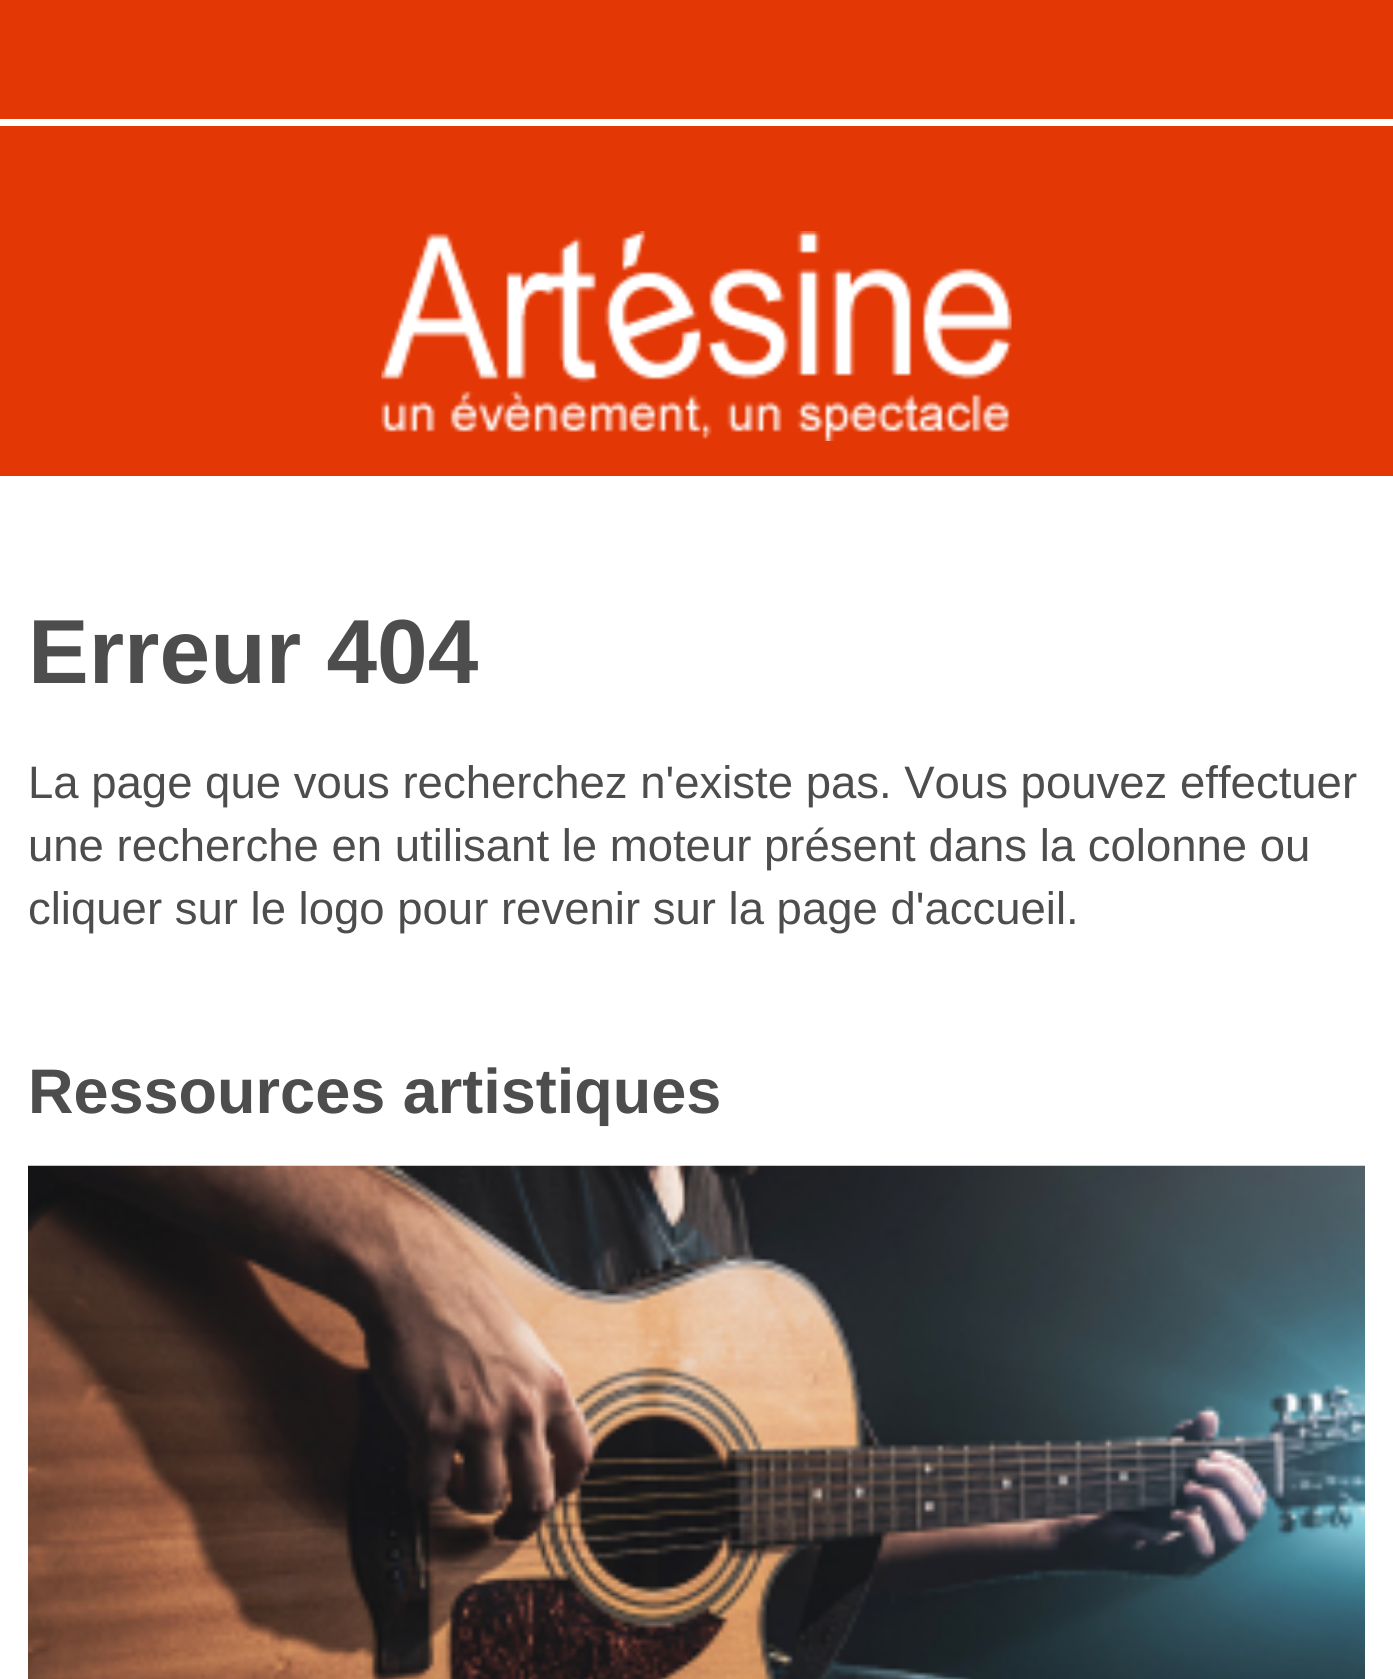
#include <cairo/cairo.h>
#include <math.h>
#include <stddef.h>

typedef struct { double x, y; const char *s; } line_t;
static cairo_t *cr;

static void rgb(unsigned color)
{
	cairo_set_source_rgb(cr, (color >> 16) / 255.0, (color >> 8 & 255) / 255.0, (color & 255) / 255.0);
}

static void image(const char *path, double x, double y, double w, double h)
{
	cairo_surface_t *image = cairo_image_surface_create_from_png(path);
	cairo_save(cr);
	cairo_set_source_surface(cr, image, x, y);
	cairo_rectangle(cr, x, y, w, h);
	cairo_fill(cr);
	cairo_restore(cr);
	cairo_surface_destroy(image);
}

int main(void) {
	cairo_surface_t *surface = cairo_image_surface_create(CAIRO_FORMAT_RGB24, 1393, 1679);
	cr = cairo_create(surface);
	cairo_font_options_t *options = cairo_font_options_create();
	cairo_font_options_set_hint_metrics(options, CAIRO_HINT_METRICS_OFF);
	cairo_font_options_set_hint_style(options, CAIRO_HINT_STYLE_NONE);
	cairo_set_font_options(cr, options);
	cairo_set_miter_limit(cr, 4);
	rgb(0xffffff);
	cairo_paint(cr);
	rgb(0xe33805);
	cairo_rectangle(cr, 0, 0, 1393, 119);
	cairo_fill(cr);
	cairo_rectangle(cr, 0, 126, 1393, 350);
	cairo_fill(cr);
	image("img/1.png", 381, 231, 631, 210);
	image("img/2.png", 28, 1165, 1337, 514);
	cairo_select_font_face(cr, "Liberation Sans", CAIRO_FONT_SLANT_NORMAL, CAIRO_FONT_WEIGHT_BOLD);
	cairo_set_font_size(cr, 91);
	rgb(0x4d4d4d);
	cairo_move_to(cr, 28, 683);
	cairo_show_text(cr, "Erreur 404");
	cairo_select_font_face(cr, "Liberation Sans", CAIRO_FONT_SLANT_NORMAL, CAIRO_FONT_WEIGHT_NORMAL);
	cairo_set_font_size(cr, 45.5);
	{
		static const line_t items[] = {
			{28, 798, "La page que vous recherchez n'existe pas. Vous pouvez effectuer"},
			{28, 861, "une recherche en utilisant le moteur présent dans la colonne ou"},
			{28, 924, "cliquer sur le logo pour revenir sur la page d'accueil."},
		};
		for (size_t i = 0; i < sizeof items / sizeof *items; i++) {
			cairo_move_to(cr, items[i].x, items[i].y);
			cairo_show_text(cr, items[i].s);
		}
	}
	cairo_select_font_face(cr, "Liberation Sans", CAIRO_FONT_SLANT_NORMAL, CAIRO_FONT_WEIGHT_BOLD);
	cairo_set_font_size(cr, 63);
	cairo_move_to(cr, 28, 1113);
	cairo_show_text(cr, "Ressources artistiques");
	cairo_surface_write_to_png(surface, "page.png");
	cairo_font_options_destroy(options);
	cairo_destroy(cr);
	cairo_surface_destroy(surface);
	return 0;
}
